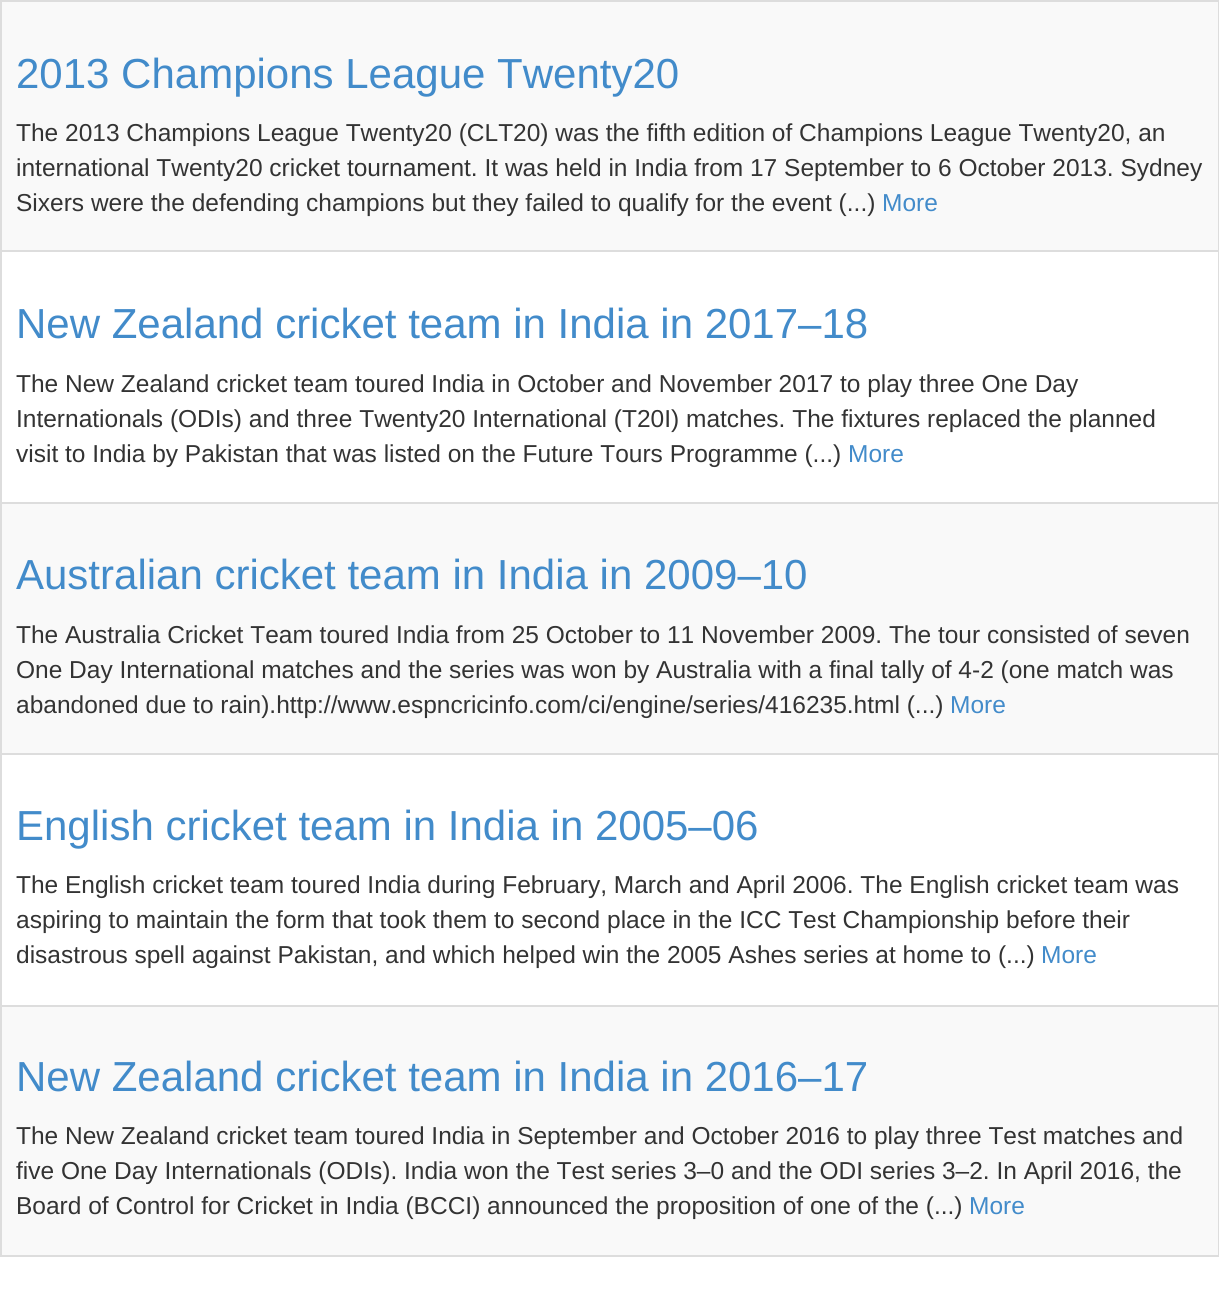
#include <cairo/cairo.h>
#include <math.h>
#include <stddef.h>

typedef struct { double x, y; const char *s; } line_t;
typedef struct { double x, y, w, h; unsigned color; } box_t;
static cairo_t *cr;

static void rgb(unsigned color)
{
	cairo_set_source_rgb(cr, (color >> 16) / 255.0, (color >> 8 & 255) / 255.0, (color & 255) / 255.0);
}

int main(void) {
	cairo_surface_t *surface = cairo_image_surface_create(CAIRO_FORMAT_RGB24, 1219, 1292);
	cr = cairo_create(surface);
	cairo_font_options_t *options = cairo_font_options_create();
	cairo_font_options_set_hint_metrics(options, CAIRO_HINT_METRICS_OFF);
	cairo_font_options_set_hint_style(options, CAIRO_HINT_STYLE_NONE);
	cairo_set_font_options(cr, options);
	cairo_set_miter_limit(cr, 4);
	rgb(0xffffff);
	cairo_paint(cr);
	{
		static const box_t items[] = {
			{0, 0, 1219, 2, 0xdddddd},
			{1218, 0, 1, 1257, 0xdddddd},
			{0, 1255, 1219, 2, 0xdddddd},
			{0, 0, 2, 1257, 0xdddddd},
			{2, 2, 1216, 248, 0xf9f9f9},
			{0, 250, 1219, 2, 0xdddddd},
			{2, 504, 1216, 249, 0xf9f9f9},
			{0, 502, 1219, 2, 0xdddddd},
			{0, 753, 1219, 2, 0xdddddd},
			{2, 1007, 1216, 248, 0xf9f9f9},
			{0, 1005, 1219, 2, 0xdddddd},
		};
		for (size_t i = 0; i < sizeof items / sizeof *items; i++) {
			rgb(items[i].color);
			cairo_rectangle(cr, items[i].x, items[i].y, items[i].w, items[i].h);
			cairo_fill(cr);
		}
	}
	cairo_select_font_face(cr, "Liberation Sans", CAIRO_FONT_SLANT_NORMAL, CAIRO_FONT_WEIGHT_NORMAL);
	cairo_set_font_size(cr, 42);
	rgb(0x428bca);
	cairo_move_to(cr, 16, 88);
	cairo_show_text(cr, "2013 Champions League Twenty20");
	cairo_set_font_size(cr, 24.5);
	rgb(0x333333);
	{
		static const line_t items[] = {
			{16, 141, "The 2013 Champions League Twenty20 (CLT20) was the fifth edition of Champions League Twenty20, an"},
			{16, 176, "international Twenty20 cricket tournament. It was held in India from 17 September to 6 October 2013. Sydney"},
			{16, 211, "Sixers were the defending champions but they failed to qualify for the event (...)"},
		};
		for (size_t i = 0; i < sizeof items / sizeof *items; i++) {
			cairo_move_to(cr, items[i].x, items[i].y);
			cairo_show_text(cr, items[i].s);
		}
	}
	rgb(0x428bca);
	cairo_move_to(cr, 882, 211);
	cairo_show_text(cr, "More");
	cairo_set_font_size(cr, 42);
	cairo_move_to(cr, 16, 338);
	cairo_show_text(cr, "New Zealand cricket team in India in 2017–18");
	cairo_set_font_size(cr, 24.5);
	rgb(0x333333);
	{
		static const line_t items[] = {
			{16, 392, "The New Zealand cricket team toured India in October and November 2017 to play three One Day"},
			{16, 427, "Internationals (ODIs) and three Twenty20 International (T20I) matches. The fixtures replaced the planned"},
			{16, 462, "visit to India by Pakistan that was listed on the Future Tours Programme (...)"},
		};
		for (size_t i = 0; i < sizeof items / sizeof *items; i++) {
			cairo_move_to(cr, items[i].x, items[i].y);
			cairo_show_text(cr, items[i].s);
		}
	}
	rgb(0x428bca);
	cairo_move_to(cr, 848, 462);
	cairo_show_text(cr, "More");
	cairo_set_font_size(cr, 42);
	cairo_move_to(cr, 16, 589);
	cairo_show_text(cr, "Australian cricket team in India in 2009–10");
	cairo_set_font_size(cr, 24.5);
	rgb(0x333333);
	{
		static const line_t items[] = {
			{16, 643, "The Australia Cricket Team toured India from 25 October to 11 November 2009. The tour consisted of seven"},
			{16, 678, "One Day International matches and the series was won by Australia with a final tally of 4-2 (one match was"},
			{16, 713, "abandoned due to rain).http://www.espncricinfo.com/ci/engine/series/416235.html (...)"},
		};
		for (size_t i = 0; i < sizeof items / sizeof *items; i++) {
			cairo_move_to(cr, items[i].x, items[i].y);
			cairo_show_text(cr, items[i].s);
		}
	}
	rgb(0x428bca);
	cairo_move_to(cr, 950, 713);
	cairo_show_text(cr, "More");
	cairo_set_font_size(cr, 42);
	cairo_move_to(cr, 16, 840);
	cairo_show_text(cr, "English cricket team in India in 2005–06");
	cairo_set_font_size(cr, 24.5);
	rgb(0x333333);
	{
		static const line_t items[] = {
			{16, 893, "The English cricket team toured India during February, March and April 2006. The English cricket team was"},
			{16, 928, "aspiring to maintain the form that took them to second place in the ICC Test Championship before their"},
			{16, 963, "disastrous spell against Pakistan, and which helped win the 2005 Ashes series at home to (...)"},
		};
		for (size_t i = 0; i < sizeof items / sizeof *items; i++) {
			cairo_move_to(cr, items[i].x, items[i].y);
			cairo_show_text(cr, items[i].s);
		}
	}
	rgb(0x428bca);
	cairo_move_to(cr, 1041, 963);
	cairo_show_text(cr, "More");
	cairo_set_font_size(cr, 42);
	cairo_move_to(cr, 16, 1091);
	cairo_show_text(cr, "New Zealand cricket team in India in 2016–17");
	cairo_set_font_size(cr, 24.5);
	rgb(0x333333);
	{
		static const line_t items[] = {
			{16, 1144, "The New Zealand cricket team toured India in September and October 2016 to play three Test matches and"},
			{16, 1179, "five One Day Internationals (ODIs). India won the Test series 3–0 and the ODI series 3–2. In April 2016, the"},
			{16, 1214, "Board of Control for Cricket in India (BCCI) announced the proposition of one of the (...)"},
		};
		for (size_t i = 0; i < sizeof items / sizeof *items; i++) {
			cairo_move_to(cr, items[i].x, items[i].y);
			cairo_show_text(cr, items[i].s);
		}
	}
	rgb(0x428bca);
	cairo_move_to(cr, 969, 1214);
	cairo_show_text(cr, "More");
	cairo_surface_write_to_png(surface, "page.png");
	cairo_font_options_destroy(options);
	cairo_destroy(cr);
	cairo_surface_destroy(surface);
	return 0;
}
